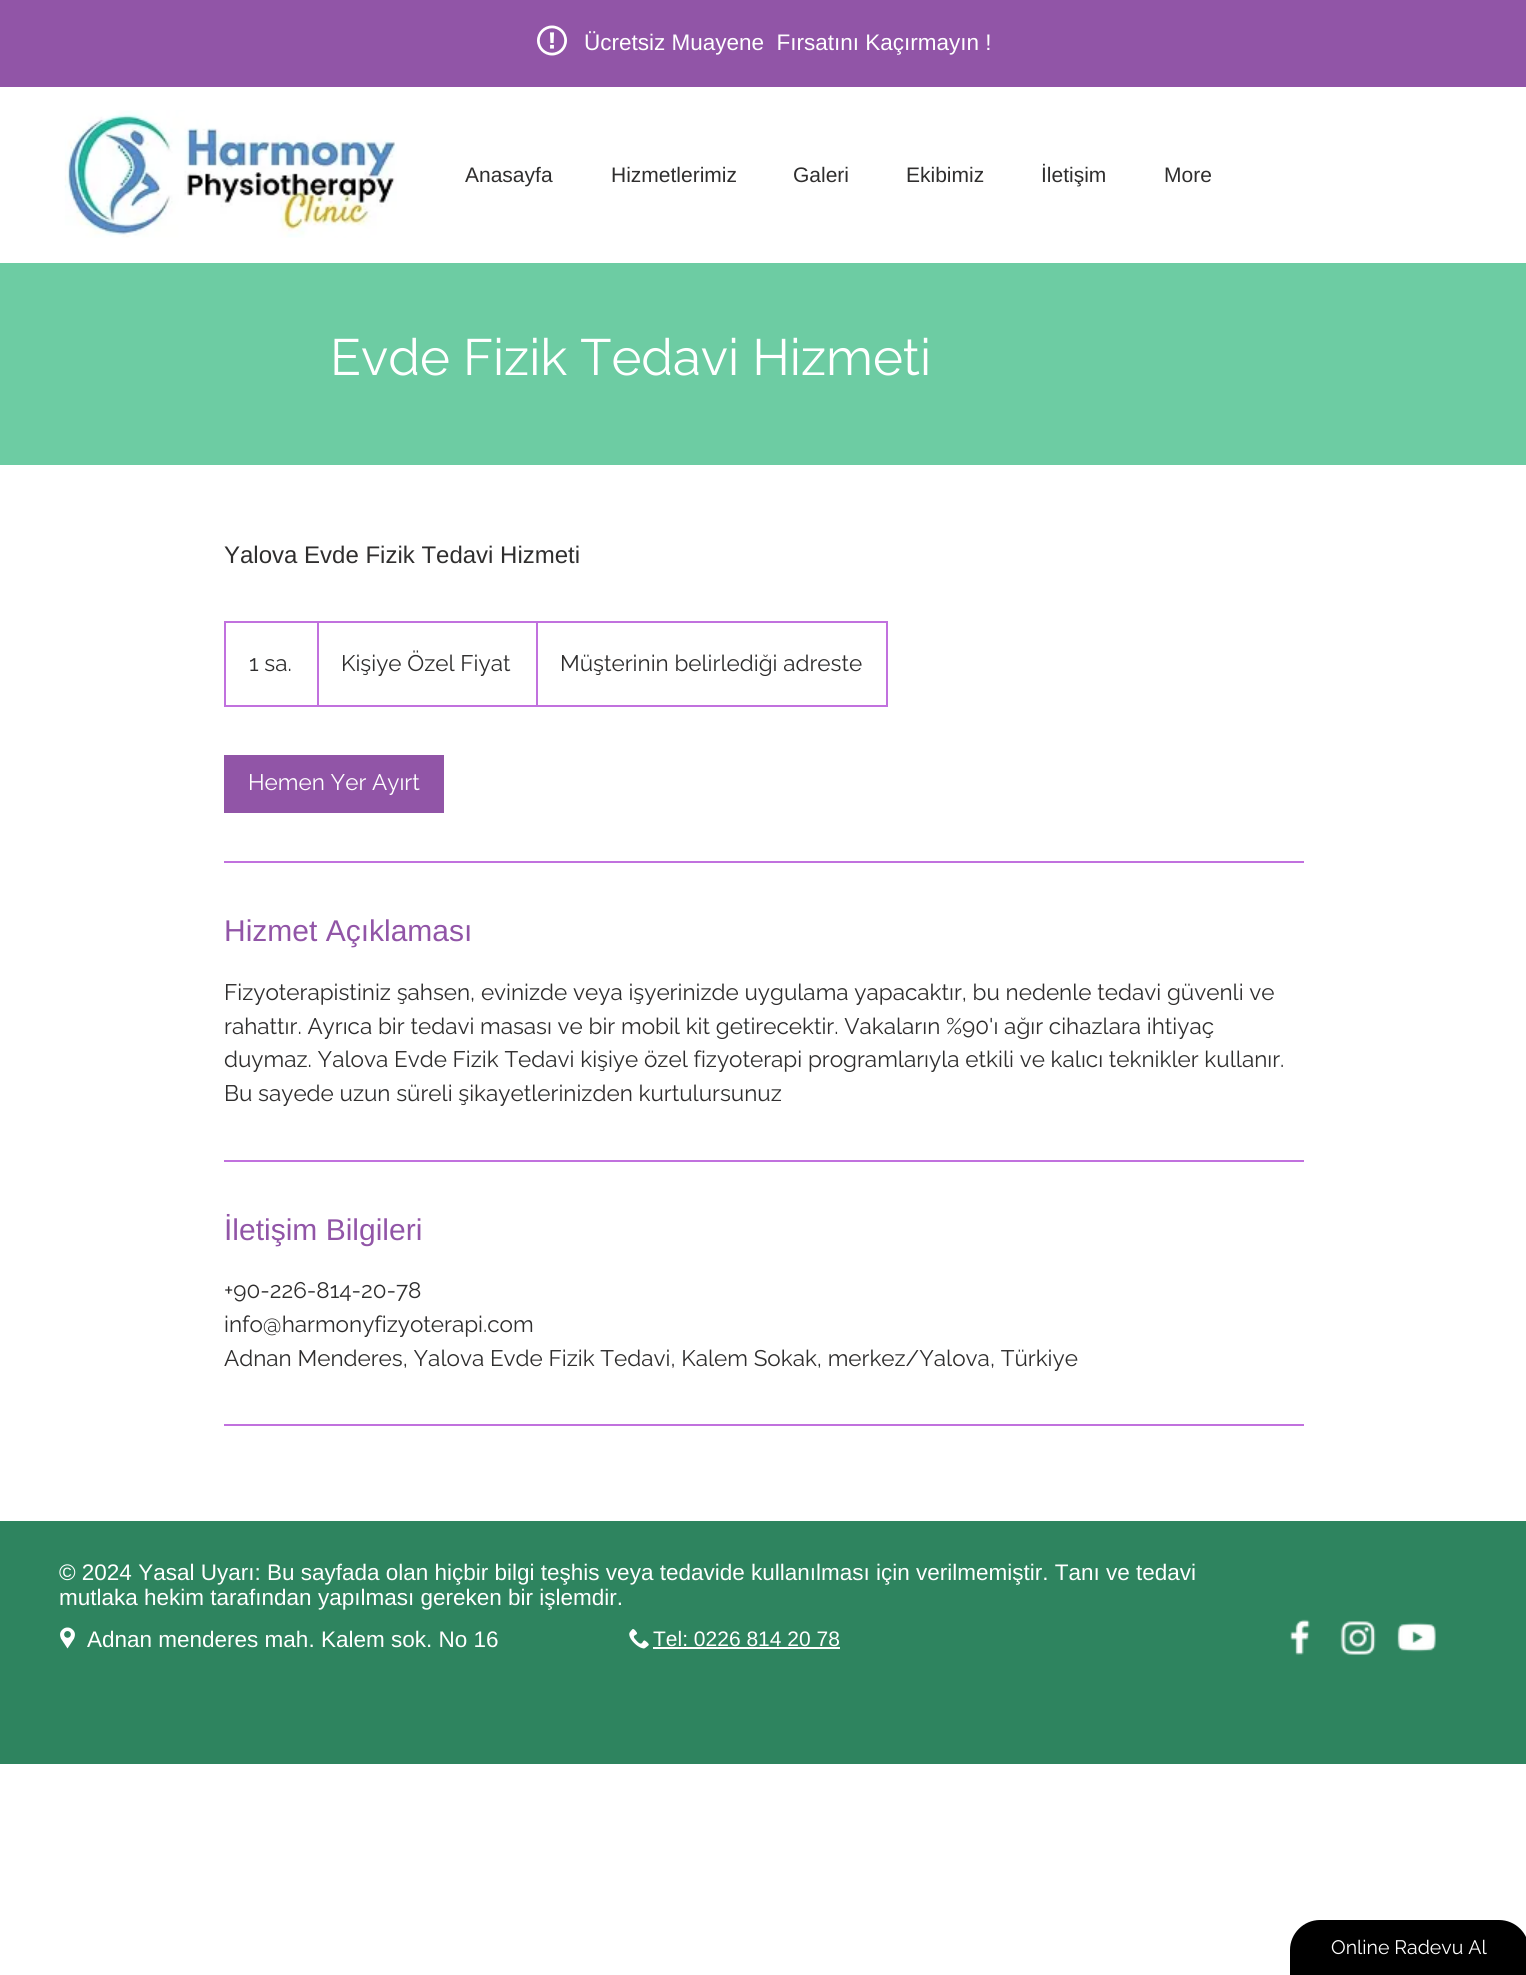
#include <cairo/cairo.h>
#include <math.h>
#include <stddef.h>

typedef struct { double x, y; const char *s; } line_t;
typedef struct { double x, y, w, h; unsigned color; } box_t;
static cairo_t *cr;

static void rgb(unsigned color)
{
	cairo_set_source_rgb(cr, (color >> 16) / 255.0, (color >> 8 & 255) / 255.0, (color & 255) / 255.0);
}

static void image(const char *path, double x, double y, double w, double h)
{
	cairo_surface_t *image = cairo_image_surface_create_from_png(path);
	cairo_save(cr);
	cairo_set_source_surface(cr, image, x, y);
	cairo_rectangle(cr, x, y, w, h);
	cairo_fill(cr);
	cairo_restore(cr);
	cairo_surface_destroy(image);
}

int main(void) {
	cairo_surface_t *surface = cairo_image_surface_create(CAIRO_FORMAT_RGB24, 1526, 1975);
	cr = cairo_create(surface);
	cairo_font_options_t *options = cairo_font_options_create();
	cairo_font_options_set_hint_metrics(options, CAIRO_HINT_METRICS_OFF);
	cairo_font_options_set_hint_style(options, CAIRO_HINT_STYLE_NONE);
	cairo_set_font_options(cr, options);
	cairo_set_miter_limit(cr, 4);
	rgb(0xffffff);
	cairo_paint(cr);
	rgb(0x9155a7);
	cairo_rectangle(cr, 0, 0, 1526, 87);
	cairo_fill(cr);
	image("img/1.png", 537, 25, 30, 31);
	image("img/2.png", 64, 110, 333, 128);
	rgb(0x6dcca3);
	cairo_rectangle(cr, 0, 263, 1526, 202);
	cairo_fill(cr);
	cairo_rectangle(cr, 225, 622, 662, 84);
	rgb(0xc171de);
	cairo_stroke(cr);
	{
		static const box_t items[] = {
			{317, 623, 2, 82, 0xc171de},
			{536, 623, 2, 82, 0xc171de},
			{224, 755, 220, 58, 0x9155a7},
			{224, 861, 1080, 2, 0xc171de},
			{224, 1160, 1080, 2, 0xc171de},
			{224, 1424, 1080, 2, 0xc171de},
			{0, 1521, 1526, 243, 0x2e845f},
		};
		for (size_t i = 0; i < sizeof items / sizeof *items; i++) {
			rgb(items[i].color);
			cairo_rectangle(cr, items[i].x, items[i].y, items[i].w, items[i].h);
			cairo_fill(cr);
		}
	}
	image("img/3.png", 60, 1627, 15, 22);
	image("img/4.png", 629, 1629, 20, 20);
	rgb(0xffffff);
	cairo_rectangle(cr, 653, 1647, 187, 2);
	cairo_fill(cr);
	image("img/5.png", 1290, 1619, 20, 36);
	image("img/6.png", 1340, 1621, 36, 34);
	image("img/7.png", 1397, 1622, 39, 30);
	rgb(0x000000);
	cairo_new_path(cr);
	cairo_move_to(cr, 1320, 1920);
	cairo_line_to(cr, 1499, 1920);
	cairo_curve_to(cr, 1515.5, 1920, 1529, 1933.5, 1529, 1950);
	cairo_line_to(cr, 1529, 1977);
	cairo_line_to(cr, 1290, 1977);
	cairo_line_to(cr, 1290, 1950);
	cairo_curve_to(cr, 1290, 1933.5, 1303.5, 1920, 1320, 1920);
	cairo_close_path(cr);
	cairo_fill(cr);
	cairo_select_font_face(cr, "Liberation Sans", CAIRO_FONT_SLANT_NORMAL, CAIRO_FONT_WEIGHT_NORMAL);
	cairo_set_font_size(cr, 22.5);
	rgb(0xffffff);
	cairo_move_to(cr, 584, 50);
	cairo_show_text(cr, "Ücretsiz Muayene  Fırsatını Kaçırmayın !");
	cairo_set_font_size(cr, 21);
	rgb(0x2f2e2e);
	{
		static const line_t items[] = {
			{465, 182, "Anasayfa"},
			{611, 182, "Hizmetlerimiz"},
			{793, 182, "Galeri"},
			{906, 182, "Ekibimiz"},
			{1041, 182, "İletişim"},
			{1164, 182, "More"},
		};
		for (size_t i = 0; i < sizeof items / sizeof *items; i++) {
			cairo_move_to(cr, items[i].x, items[i].y);
			cairo_show_text(cr, items[i].s);
		}
	}
	cairo_select_font_face(cr, "Raleway", CAIRO_FONT_SLANT_NORMAL, CAIRO_FONT_WEIGHT_NORMAL);
	cairo_set_font_size(cr, 51);
	rgb(0xffffff);
	cairo_move_to(cr, 330, 375);
	cairo_show_text(cr, "Evde Fizik Tedavi Hizmeti");
	cairo_select_font_face(cr, "Liberation Sans", CAIRO_FONT_SLANT_NORMAL, CAIRO_FONT_WEIGHT_NORMAL);
	cairo_set_font_size(cr, 24);
	rgb(0x2f2e2e);
	cairo_move_to(cr, 224, 563);
	cairo_show_text(cr, "Yalova Evde Fizik Tedavi Hizmeti");
	cairo_select_font_face(cr, "Raleway", CAIRO_FONT_SLANT_NORMAL, CAIRO_FONT_WEIGHT_NORMAL);
	cairo_set_font_size(cr, 22.5);
	{
		static const line_t items[] = {
			{249, 671, "1 sa."},
			{341, 671, "Kişiye Özel Fiyat"},
			{560, 671, "Müşterinin belirlediği adreste"},
		};
		for (size_t i = 0; i < sizeof items / sizeof *items; i++) {
			cairo_move_to(cr, items[i].x, items[i].y);
			cairo_show_text(cr, items[i].s);
		}
	}
	rgb(0xffffff);
	cairo_move_to(cr, 248, 790);
	cairo_show_text(cr, "Hemen Yer Ayırt");
	cairo_select_font_face(cr, "Liberation Sans", CAIRO_FONT_SLANT_NORMAL, CAIRO_FONT_WEIGHT_NORMAL);
	cairo_set_font_size(cr, 30);
	rgb(0x9155a7);
	cairo_move_to(cr, 224, 941);
	cairo_show_text(cr, "Hizmet Açıklaması");
	cairo_select_font_face(cr, "Raleway", CAIRO_FONT_SLANT_NORMAL, CAIRO_FONT_WEIGHT_NORMAL);
	cairo_set_font_size(cr, 22.5);
	rgb(0x2f2e2e);
	{
		static const line_t items[] = {
			{224, 1000, "Fizyoterapistiniz şahsen, evinizde veya işyerinizde uygulama yapacaktır, bu nedenle tedavi güvenli ve"},
			{224, 1034, "rahattır. Ayrıca bir tedavi masası ve bir mobil kit getirecektir. Vakaların %90'ı ağır cihazlara ihtiyaç"},
			{224, 1067, "duymaz. Yalova Evde Fizik Tedavi kişiye özel fizyoterapi programlarıyla etkili ve kalıcı teknikler kullanır."},
			{224, 1101, "Bu sayede uzun süreli şikayetlerinizden kurtulursunuz"},
		};
		for (size_t i = 0; i < sizeof items / sizeof *items; i++) {
			cairo_move_to(cr, items[i].x, items[i].y);
			cairo_show_text(cr, items[i].s);
		}
	}
	cairo_select_font_face(cr, "Liberation Sans", CAIRO_FONT_SLANT_NORMAL, CAIRO_FONT_WEIGHT_NORMAL);
	cairo_set_font_size(cr, 30);
	rgb(0x9155a7);
	cairo_move_to(cr, 224, 1240);
	cairo_show_text(cr, "İletişim Bilgileri");
	cairo_select_font_face(cr, "Raleway", CAIRO_FONT_SLANT_NORMAL, CAIRO_FONT_WEIGHT_NORMAL);
	cairo_set_font_size(cr, 22.5);
	rgb(0x2f2e2e);
	{
		static const line_t items[] = {
			{224, 1298, "+90-226-814-20-78"},
			{224, 1332, "info@harmonyfizyoterapi.com"},
			{224, 1366, "Adnan Menderes, Yalova Evde Fizik Tedavi, Kalem Sokak, merkez/Yalova, Türkiye"},
		};
		for (size_t i = 0; i < sizeof items / sizeof *items; i++) {
			cairo_move_to(cr, items[i].x, items[i].y);
			cairo_show_text(cr, items[i].s);
		}
	}
	cairo_select_font_face(cr, "Liberation Sans", CAIRO_FONT_SLANT_NORMAL, CAIRO_FONT_WEIGHT_NORMAL);
	rgb(0xffffff);
	{
		static const line_t items[] = {
			{59, 1580, "© 2024 Yasal Uyarı: Bu sayfada olan hiçbir bilgi teşhis veya tedavide kullanılması için verilmemiştir. Tanı ve tedavi"},
			{59, 1605, "mutlaka hekim tarafından yapılması gereken bir işlemdir."},
			{87, 1647, "Adnan menderes mah. Kalem sok. No 16"},
		};
		for (size_t i = 0; i < sizeof items / sizeof *items; i++) {
			cairo_move_to(cr, items[i].x, items[i].y);
			cairo_show_text(cr, items[i].s);
		}
	}
	cairo_set_font_size(cr, 21);
	cairo_move_to(cr, 653, 1646);
	cairo_show_text(cr, "Tel: 0226 814 20 78");
	cairo_select_font_face(cr, "Raleway", CAIRO_FONT_SLANT_NORMAL, CAIRO_FONT_WEIGHT_NORMAL);
	cairo_set_font_size(cr, 19.5);
	cairo_move_to(cr, 1331, 1954);
	cairo_show_text(cr, "Online Radevu Al");
	cairo_surface_write_to_png(surface, "page.png");
	cairo_font_options_destroy(options);
	cairo_destroy(cr);
	cairo_surface_destroy(surface);
	return 0;
}
